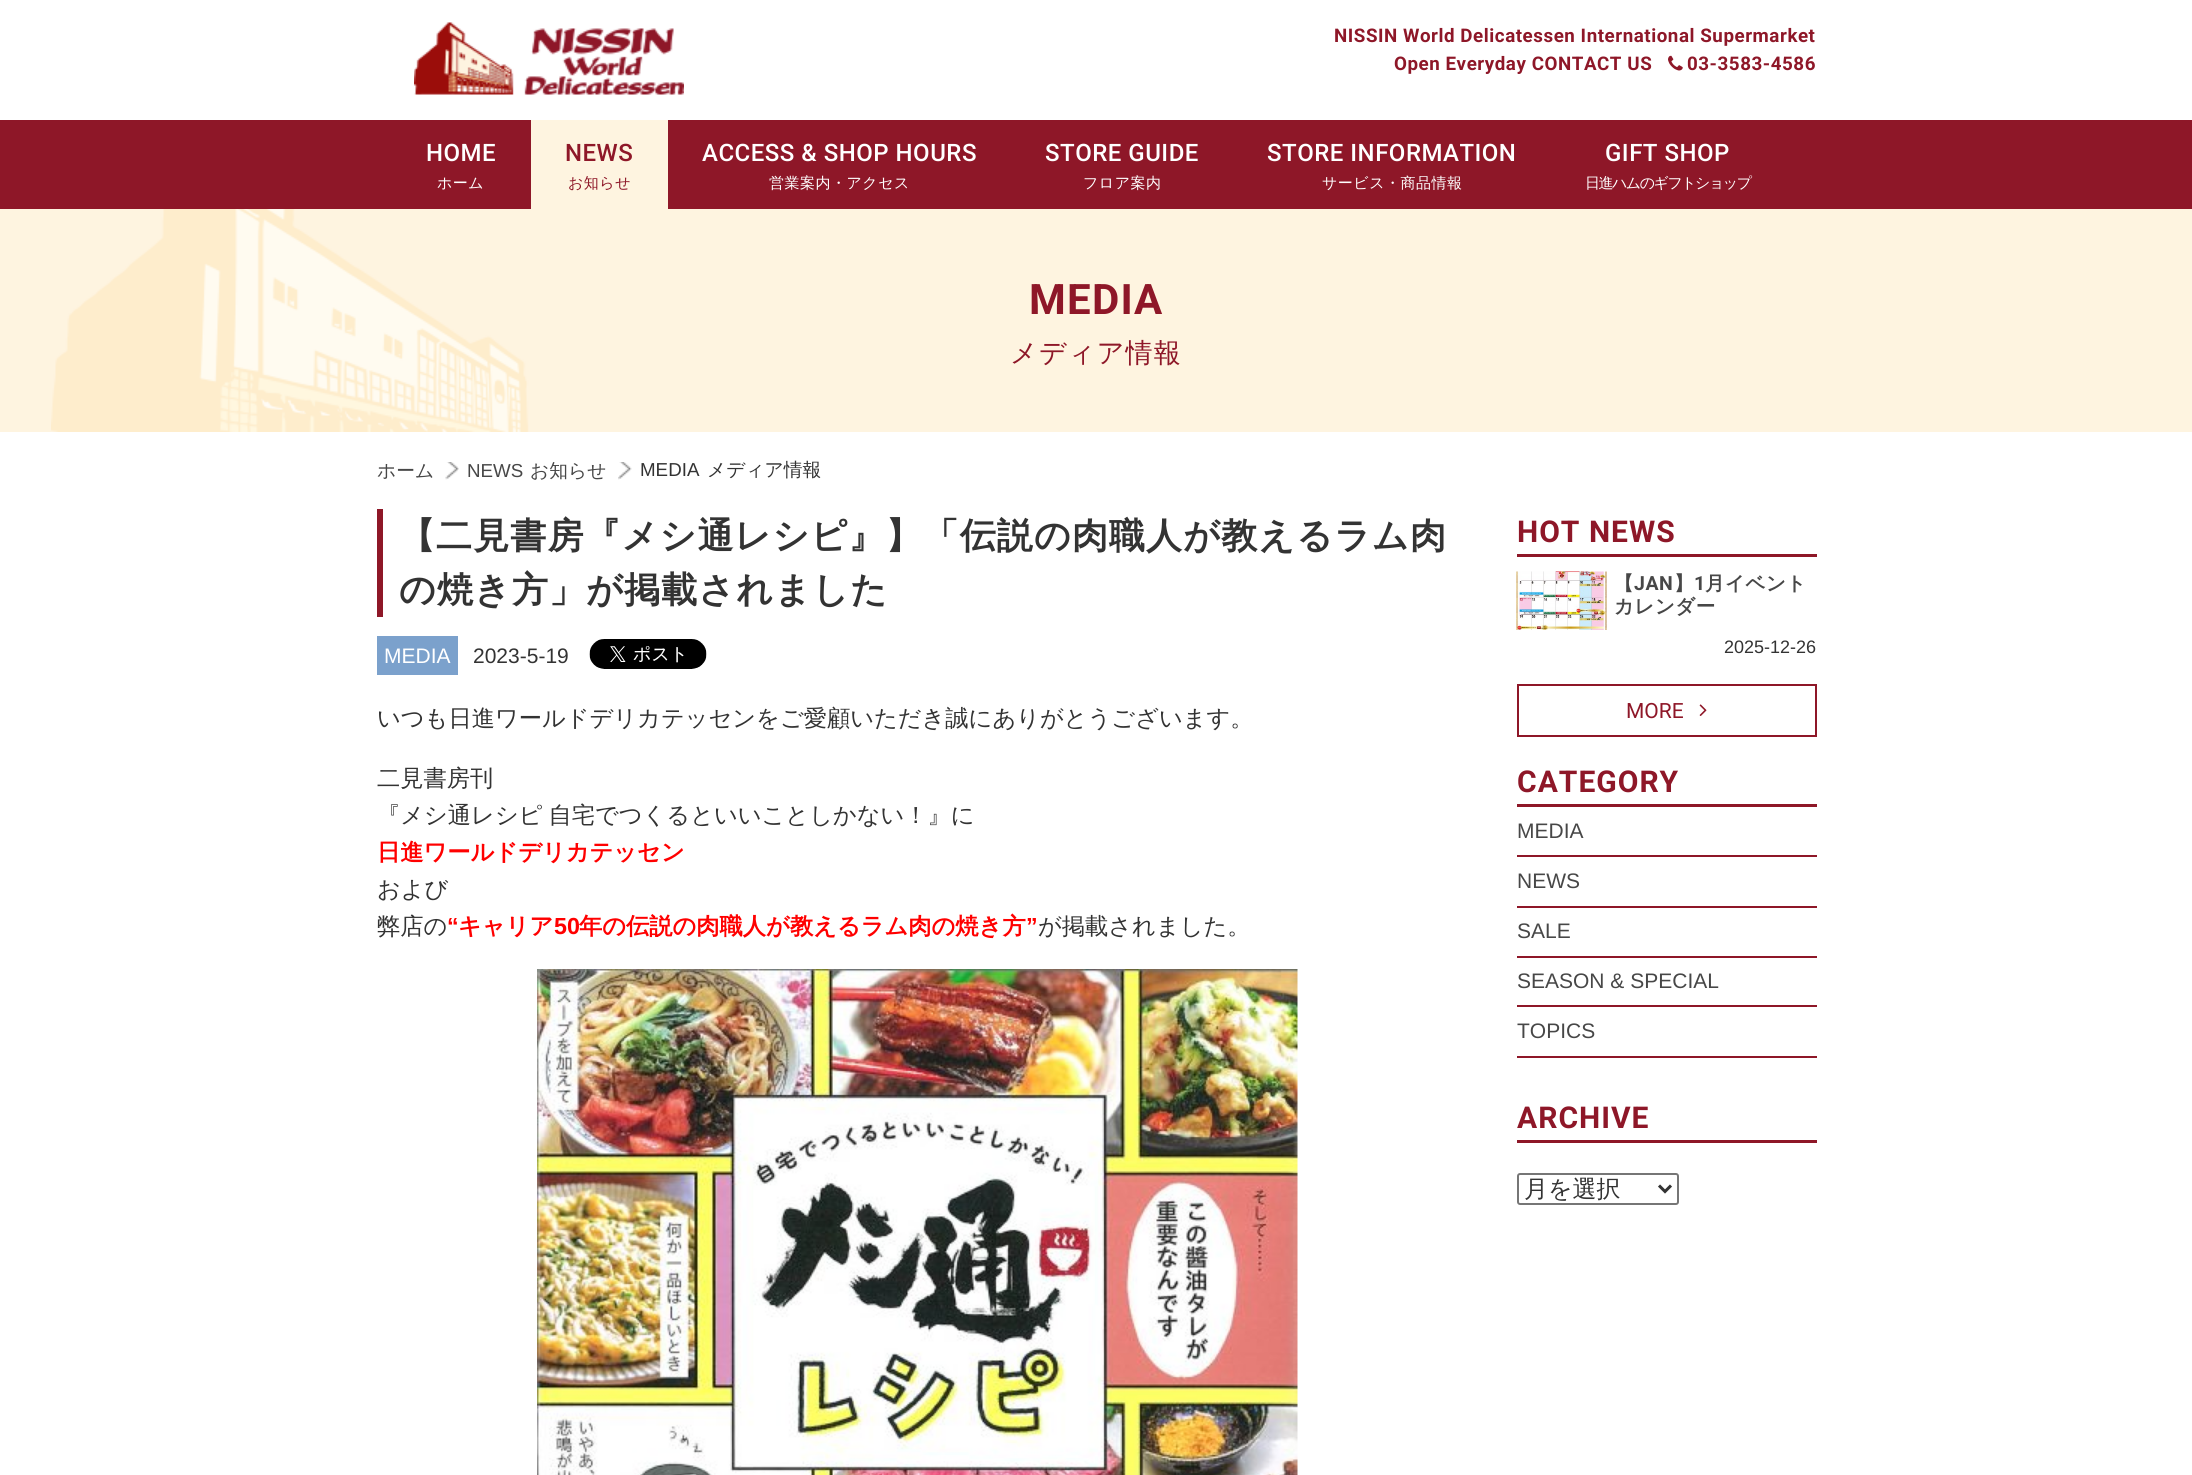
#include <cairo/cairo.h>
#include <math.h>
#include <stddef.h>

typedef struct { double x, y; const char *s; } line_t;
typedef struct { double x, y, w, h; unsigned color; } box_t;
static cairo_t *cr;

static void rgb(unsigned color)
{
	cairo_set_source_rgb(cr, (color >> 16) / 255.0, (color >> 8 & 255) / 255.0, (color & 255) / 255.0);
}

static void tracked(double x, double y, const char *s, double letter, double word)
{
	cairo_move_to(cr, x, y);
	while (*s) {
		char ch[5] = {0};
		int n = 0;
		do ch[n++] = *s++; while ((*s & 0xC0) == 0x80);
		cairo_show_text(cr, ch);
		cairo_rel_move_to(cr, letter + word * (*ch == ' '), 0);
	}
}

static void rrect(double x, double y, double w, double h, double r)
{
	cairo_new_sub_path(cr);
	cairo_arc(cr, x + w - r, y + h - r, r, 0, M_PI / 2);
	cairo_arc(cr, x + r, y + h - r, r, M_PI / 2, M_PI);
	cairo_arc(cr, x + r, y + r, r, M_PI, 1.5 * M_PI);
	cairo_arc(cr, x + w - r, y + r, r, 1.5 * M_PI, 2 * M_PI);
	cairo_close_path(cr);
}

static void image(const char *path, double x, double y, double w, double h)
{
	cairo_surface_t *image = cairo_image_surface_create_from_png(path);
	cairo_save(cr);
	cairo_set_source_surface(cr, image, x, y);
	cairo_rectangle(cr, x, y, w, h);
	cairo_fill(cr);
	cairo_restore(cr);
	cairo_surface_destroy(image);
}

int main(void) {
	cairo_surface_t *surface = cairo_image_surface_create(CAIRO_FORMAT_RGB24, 2192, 1475);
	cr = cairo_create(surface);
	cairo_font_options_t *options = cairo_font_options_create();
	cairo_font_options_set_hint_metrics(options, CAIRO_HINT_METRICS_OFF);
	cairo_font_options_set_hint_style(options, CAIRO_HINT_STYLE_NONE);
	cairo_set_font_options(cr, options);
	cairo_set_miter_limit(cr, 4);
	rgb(0xffffff);
	cairo_paint(cr);
	image("img/1.png", 414, 22, 270, 73);
	image("img/2.png", 1668, 55, 15, 16);
	{
		static const box_t items[] = {
			{0, 120, 2192, 89, 0x8e1728},
			{531, 120, 137, 89, 0xfef4e0},
			{0, 209, 2192, 223, 0xfef4e0},
		};
		for (size_t i = 0; i < sizeof items / sizeof *items; i++) {
			rgb(items[i].color);
			cairo_rectangle(cr, items[i].x, items[i].y, items[i].w, items[i].h);
			cairo_fill(cr);
		}
	}
	image("img/3.png", 51, 209, 480, 223);
	image("img/4.png", 445, 462, 14, 18);
	image("img/5.png", 618, 462, 14, 18);
	rgb(0x8e1728);
	cairo_rectangle(cr, 377, 509, 6, 108);
	cairo_fill(cr);
	rgb(0x7ba1cc);
	cairo_rectangle(cr, 377, 636, 81, 39);
	cairo_fill(cr);
	image("img/6.png", 589, 639, 118, 30);
	image("img/7.png", 537, 969, 761, 506);
	rgb(0x8e1728);
	cairo_rectangle(cr, 1517, 554, 300, 3);
	cairo_fill(cr);
	image("img/8.png", 1516, 571, 91, 59);
	cairo_rectangle(cr, 1518, 685, 298, 51);
	cairo_stroke(cr);
	image("img/9.png", 1699, 704, 8, 12);
	{
		static const box_t items[] = {
			{1517, 804, 300, 3, 0x8e1728},
			{1517, 855, 300, 2, 0x8e1728},
			{1517, 906, 300, 2, 0x8e1728},
			{1517, 956, 300, 2, 0x8e1728},
			{1517, 1005, 300, 2, 0x8e1728},
			{1517, 1056, 300, 2, 0x8e1728},
			{1517, 1140, 300, 3, 0x8e1728},
		};
		for (size_t i = 0; i < sizeof items / sizeof *items; i++) {
			rgb(items[i].color);
			cairo_rectangle(cr, items[i].x, items[i].y, items[i].w, items[i].h);
			cairo_fill(cr);
		}
	}
	rrect(1518, 1174, 160, 30, 2);
	rgb(0x767676);
	cairo_stroke(cr);
	cairo_new_path(cr);
	cairo_move_to(cr, 1659, 1185.5);
	cairo_line_to(cr, 1665, 1191.5);
	cairo_line_to(cr, 1671, 1185.5);
	rgb(0x333333);
	cairo_set_line_width(cr, 3);
	cairo_stroke(cr);
	cairo_select_font_face(cr, "Roboto", CAIRO_FONT_SLANT_NORMAL, CAIRO_FONT_WEIGHT_BOLD);
	cairo_set_font_size(cr, 18.75);
	rgb(0x8e1728);
	{
		static const line_t items[] = {
			{1334, 42, "NISSIN World Delicatessen International Supermarket"},
			{1394, 70, "Open Everyday CONTACT US"},
			{1687, 70, "03-3583-4586"},
		};
		for (size_t i = 0; i < sizeof items / sizeof *items; i++) {
			tracked(items[i].x, items[i].y, items[i].s, 0.55, 0);
		}
	}
	cairo_select_font_face(cr, "Roboto Medium", CAIRO_FONT_SLANT_NORMAL, CAIRO_FONT_WEIGHT_NORMAL);
	cairo_set_font_size(cr, 24);
	rgb(0xffffff);
	tracked(426, 161, "HOME", 0.5, 0);
	cairo_select_font_face(cr, "WenQuanYi Zen Hei Medium", CAIRO_FONT_SLANT_NORMAL, CAIRO_FONT_WEIGHT_NORMAL);
	cairo_set_font_size(cr, 15);
	tracked(437, 188, "ホーム", 0.5, 0);
	cairo_select_font_face(cr, "Roboto Medium", CAIRO_FONT_SLANT_NORMAL, CAIRO_FONT_WEIGHT_NORMAL);
	cairo_set_font_size(cr, 24);
	rgb(0x8e1728);
	tracked(565, 161, "NEWS", 0.5, 0);
	cairo_select_font_face(cr, "WenQuanYi Zen Hei Medium", CAIRO_FONT_SLANT_NORMAL, CAIRO_FONT_WEIGHT_NORMAL);
	cairo_set_font_size(cr, 15);
	tracked(568, 188, "お知らせ", 0.5, 0);
	cairo_select_font_face(cr, "Roboto Medium", CAIRO_FONT_SLANT_NORMAL, CAIRO_FONT_WEIGHT_NORMAL);
	cairo_set_font_size(cr, 24);
	rgb(0xffffff);
	tracked(702, 161, "ACCESS & SHOP HOURS", 0.5, 0);
	cairo_select_font_face(cr, "WenQuanYi Zen Hei Medium", CAIRO_FONT_SLANT_NORMAL, CAIRO_FONT_WEIGHT_NORMAL);
	cairo_set_font_size(cr, 15);
	tracked(769, 188, "営業案内・アクセス", 0.5, 0);
	cairo_select_font_face(cr, "Roboto Medium", CAIRO_FONT_SLANT_NORMAL, CAIRO_FONT_WEIGHT_NORMAL);
	cairo_set_font_size(cr, 24);
	tracked(1045, 161, "STORE GUIDE", 0.5, 0);
	cairo_select_font_face(cr, "WenQuanYi Zen Hei Medium", CAIRO_FONT_SLANT_NORMAL, CAIRO_FONT_WEIGHT_NORMAL);
	cairo_set_font_size(cr, 15);
	tracked(1083, 188, "フロア案内", 0.5, 0);
	cairo_select_font_face(cr, "Roboto Medium", CAIRO_FONT_SLANT_NORMAL, CAIRO_FONT_WEIGHT_NORMAL);
	cairo_set_font_size(cr, 24);
	tracked(1267, 161, "STORE INFORMATION", 0.5, 0);
	cairo_select_font_face(cr, "WenQuanYi Zen Hei Medium", CAIRO_FONT_SLANT_NORMAL, CAIRO_FONT_WEIGHT_NORMAL);
	cairo_set_font_size(cr, 15);
	tracked(1322, 188, "サービス・商品情報", 0.5, 0);
	cairo_select_font_face(cr, "Roboto Medium", CAIRO_FONT_SLANT_NORMAL, CAIRO_FONT_WEIGHT_NORMAL);
	cairo_set_font_size(cr, 24);
	tracked(1605, 161, "GIFT SHOP", 0.5, 0);
	cairo_select_font_face(cr, "WenQuanYi Zen Hei Medium", CAIRO_FONT_SLANT_NORMAL, CAIRO_FONT_WEIGHT_NORMAL);
	cairo_set_font_size(cr, 15);
	tracked(1585, 188, "日進ハムのギフトショップ", -1.5, 0);
	cairo_select_font_face(cr, "Roboto", CAIRO_FONT_SLANT_NORMAL, CAIRO_FONT_WEIGHT_BOLD);
	cairo_set_font_size(cr, 42);
	rgb(0x8e1728);
	tracked(1029, 314, "MEDIA", 1.25, 0);
	cairo_select_font_face(cr, "WenQuanYi Zen Hei Medium", CAIRO_FONT_SLANT_NORMAL, CAIRO_FONT_WEIGHT_NORMAL);
	cairo_set_font_size(cr, 27);
	tracked(1010, 362, "メディア情報", 1.25, 0);
	cairo_set_font_size(cr, 18.75);
	rgb(0x474747);
	cairo_move_to(cr, 377, 477);
	cairo_show_text(cr, "ホーム");
	cairo_select_font_face(cr, "Liberation Sans", CAIRO_FONT_SLANT_NORMAL, CAIRO_FONT_WEIGHT_NORMAL);
	cairo_move_to(cr, 467, 477);
	cairo_show_text(cr, "NEWS");
	cairo_select_font_face(cr, "WenQuanYi Zen Hei Medium", CAIRO_FONT_SLANT_NORMAL, CAIRO_FONT_WEIGHT_NORMAL);
	cairo_move_to(cr, 530, 477);
	cairo_show_text(cr, "お知らせ");
	cairo_select_font_face(cr, "Liberation Sans", CAIRO_FONT_SLANT_NORMAL, CAIRO_FONT_WEIGHT_NORMAL);
	rgb(0x333333);
	cairo_move_to(cr, 640, 476);
	cairo_show_text(cr, "MEDIA");
	cairo_select_font_face(cr, "WenQuanYi Zen Hei Medium", CAIRO_FONT_SLANT_NORMAL, CAIRO_FONT_WEIGHT_NORMAL);
	cairo_move_to(cr, 707, 476);
	cairo_show_text(cr, "メディア情報");
	cairo_select_font_face(cr, "WenQuanYi Zen Hei", CAIRO_FONT_SLANT_NORMAL, CAIRO_FONT_WEIGHT_BOLD);
	cairo_set_font_size(cr, 36);
	tracked(399, 548, "【二見書房『メシ通レシピ』】「伝説の肉職人が教えるラム肉", 1.1, 0);
	tracked(399, 602, "の焼き方」が掲載されました", 1.1, 0);
	cairo_select_font_face(cr, "Liberation Sans", CAIRO_FONT_SLANT_NORMAL, CAIRO_FONT_WEIGHT_NORMAL);
	cairo_set_font_size(cr, 21);
	rgb(0xffffff);
	cairo_move_to(cr, 384, 663);
	cairo_show_text(cr, "MEDIA");
	rgb(0x333333);
	cairo_move_to(cr, 473, 663);
	cairo_show_text(cr, "2023-5-19");
	cairo_select_font_face(cr, "WenQuanYi Zen Hei Medium", CAIRO_FONT_SLANT_NORMAL, CAIRO_FONT_WEIGHT_NORMAL);
	cairo_set_font_size(cr, 23.25);
	cairo_move_to(cr, 377, 726);
	cairo_show_text(cr, "いつも日進ワールドデリカテッセンをご愛顧いただき誠にありがとうございます。");
	cairo_move_to(cr, 377, 786);
	cairo_show_text(cr, "二見書房刊");
	tracked(377, 823, "『メシ通レシピ 自宅でつくるといいことしかない！』に", 0, -1);
	cairo_select_font_face(cr, "WenQuanYi Zen Hei", CAIRO_FONT_SLANT_NORMAL, CAIRO_FONT_WEIGHT_BOLD);
	rgb(0xff0000);
	cairo_move_to(cr, 377, 860);
	cairo_show_text(cr, "日進ワールドデリカテッセン");
	cairo_select_font_face(cr, "WenQuanYi Zen Hei Medium", CAIRO_FONT_SLANT_NORMAL, CAIRO_FONT_WEIGHT_NORMAL);
	rgb(0x333333);
	cairo_move_to(cr, 377, 897);
	cairo_show_text(cr, "および");
	cairo_move_to(cr, 377, 934);
	cairo_show_text(cr, "弊店の");
	cairo_select_font_face(cr, "Liberation Sans", CAIRO_FONT_SLANT_NORMAL, CAIRO_FONT_WEIGHT_BOLD);
	rgb(0xff0000);
	cairo_move_to(cr, 447, 934);
	cairo_show_text(cr, "“");
	cairo_select_font_face(cr, "WenQuanYi Zen Hei", CAIRO_FONT_SLANT_NORMAL, CAIRO_FONT_WEIGHT_BOLD);
	cairo_move_to(cr, 458, 934);
	cairo_show_text(cr, "キャリア");
	cairo_select_font_face(cr, "Liberation Sans", CAIRO_FONT_SLANT_NORMAL, CAIRO_FONT_WEIGHT_BOLD);
	cairo_move_to(cr, 554, 934);
	cairo_show_text(cr, "50");
	cairo_select_font_face(cr, "WenQuanYi Zen Hei", CAIRO_FONT_SLANT_NORMAL, CAIRO_FONT_WEIGHT_BOLD);
	cairo_move_to(cr, 579, 934);
	cairo_show_text(cr, "年の伝説の肉職人が教えるラム肉の焼き方");
	cairo_select_font_face(cr, "Liberation Sans", CAIRO_FONT_SLANT_NORMAL, CAIRO_FONT_WEIGHT_BOLD);
	cairo_move_to(cr, 1026, 934);
	cairo_show_text(cr, "”");
	cairo_select_font_face(cr, "WenQuanYi Zen Hei Medium", CAIRO_FONT_SLANT_NORMAL, CAIRO_FONT_WEIGHT_NORMAL);
	rgb(0x333333);
	cairo_move_to(cr, 1038, 934);
	cairo_show_text(cr, "が掲載されました。");
	cairo_select_font_face(cr, "Roboto", CAIRO_FONT_SLANT_NORMAL, CAIRO_FONT_WEIGHT_BOLD);
	cairo_set_font_size(cr, 30);
	rgb(0x8e1728);
	tracked(1517, 542, "HOT NEWS", 1, 0);
	cairo_select_font_face(cr, "WenQuanYi Zen Hei", CAIRO_FONT_SLANT_NORMAL, CAIRO_FONT_WEIGHT_BOLD);
	cairo_set_font_size(cr, 19.5);
	rgb(0x474747);
	tracked(1614, 590, "【", 0.5, 0);
	cairo_select_font_face(cr, "Roboto", CAIRO_FONT_SLANT_NORMAL, CAIRO_FONT_WEIGHT_BOLD);
	tracked(1634, 590, "JAN", 0.5, 0);
	cairo_select_font_face(cr, "WenQuanYi Zen Hei", CAIRO_FONT_SLANT_NORMAL, CAIRO_FONT_WEIGHT_BOLD);
	tracked(1674, 590, "】", 0.5, 0);
	cairo_select_font_face(cr, "Roboto", CAIRO_FONT_SLANT_NORMAL, CAIRO_FONT_WEIGHT_BOLD);
	tracked(1694, 590, "1", 0.5, 0);
	cairo_select_font_face(cr, "WenQuanYi Zen Hei", CAIRO_FONT_SLANT_NORMAL, CAIRO_FONT_WEIGHT_BOLD);
	tracked(1705, 590, "月イベント", 0.5, 0);
	tracked(1614, 613, "カレンダー", 0.5, 0);
	cairo_select_font_face(cr, "Liberation Sans", CAIRO_FONT_SLANT_NORMAL, CAIRO_FONT_WEIGHT_NORMAL);
	cairo_set_font_size(cr, 18);
	rgb(0x333333);
	cairo_move_to(cr, 1724, 653);
	cairo_show_text(cr, "2025-12-26");
	cairo_select_font_face(cr, "Roboto", CAIRO_FONT_SLANT_NORMAL, CAIRO_FONT_WEIGHT_NORMAL);
	cairo_set_font_size(cr, 21);
	rgb(0x8e1728);
	cairo_move_to(cr, 1626, 718);
	cairo_show_text(cr, "MORE");
	cairo_select_font_face(cr, "Roboto", CAIRO_FONT_SLANT_NORMAL, CAIRO_FONT_WEIGHT_BOLD);
	cairo_set_font_size(cr, 30);
	tracked(1517, 792, "CATEGORY", 1, 0);
	cairo_select_font_face(cr, "Liberation Sans", CAIRO_FONT_SLANT_NORMAL, CAIRO_FONT_WEIGHT_NORMAL);
	cairo_set_font_size(cr, 21);
	rgb(0x474747);
	{
		static const line_t items[] = {
			{1517, 838, "MEDIA"},
			{1517, 888, "NEWS"},
			{1517, 938, "SALE"},
			{1517, 988, "SEASON & SPECIAL"},
			{1517, 1038, "TOPICS"},
		};
		for (size_t i = 0; i < sizeof items / sizeof *items; i++) {
			cairo_move_to(cr, items[i].x, items[i].y);
			cairo_show_text(cr, items[i].s);
		}
	}
	cairo_select_font_face(cr, "Roboto", CAIRO_FONT_SLANT_NORMAL, CAIRO_FONT_WEIGHT_BOLD);
	cairo_set_font_size(cr, 30);
	rgb(0x8e1728);
	tracked(1517, 1128, "ARCHIVE", 1, 0);
	cairo_select_font_face(cr, "WenQuanYi Zen Hei Medium", CAIRO_FONT_SLANT_NORMAL, CAIRO_FONT_WEIGHT_NORMAL);
	cairo_set_font_size(cr, 24);
	rgb(0x333333);
	cairo_move_to(cr, 1524, 1197);
	cairo_show_text(cr, "月を選択");
	cairo_surface_write_to_png(surface, "page.png");
	cairo_font_options_destroy(options);
	cairo_destroy(cr);
	cairo_surface_destroy(surface);
	return 0;
}
